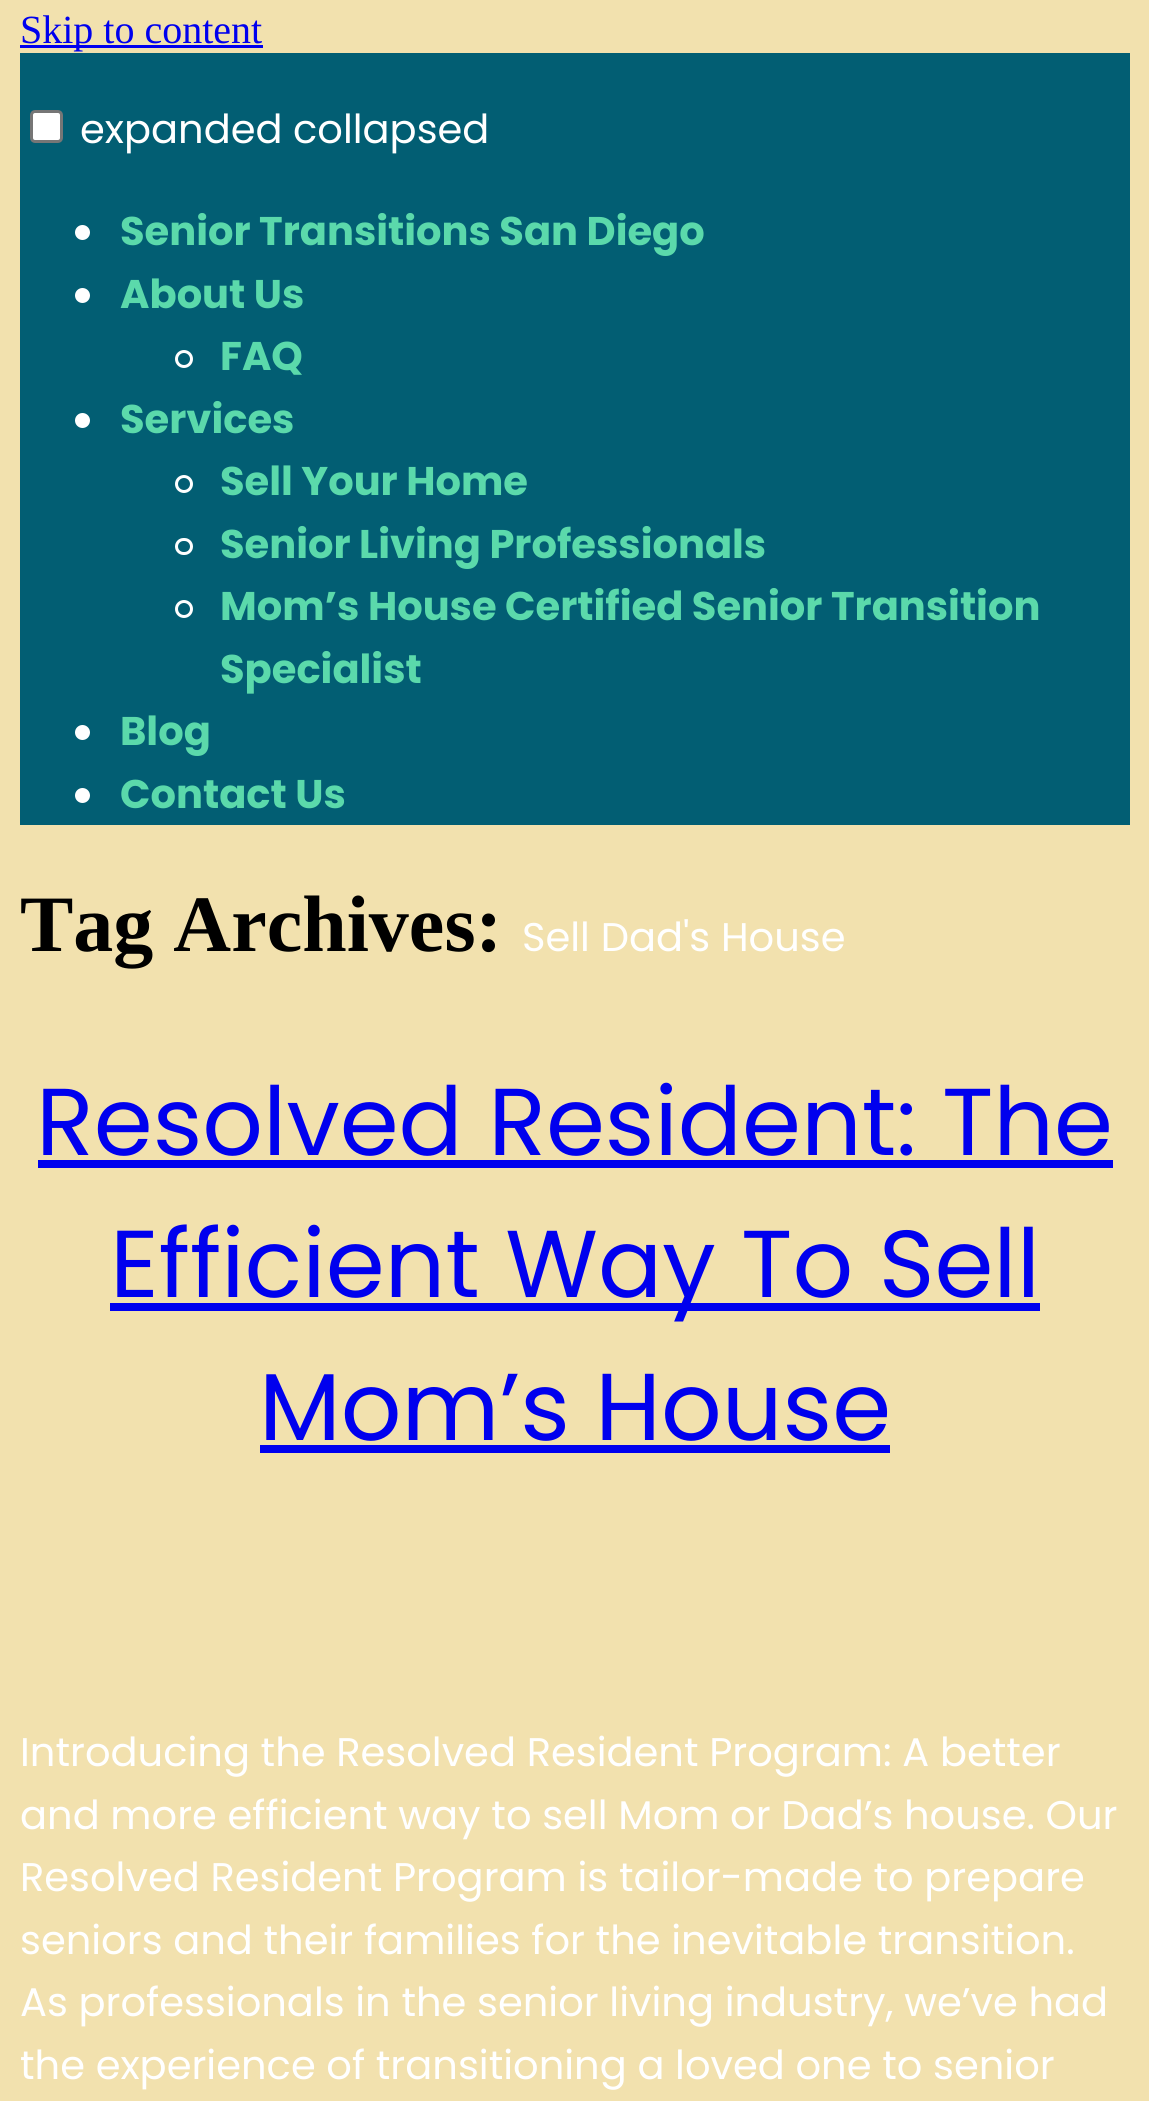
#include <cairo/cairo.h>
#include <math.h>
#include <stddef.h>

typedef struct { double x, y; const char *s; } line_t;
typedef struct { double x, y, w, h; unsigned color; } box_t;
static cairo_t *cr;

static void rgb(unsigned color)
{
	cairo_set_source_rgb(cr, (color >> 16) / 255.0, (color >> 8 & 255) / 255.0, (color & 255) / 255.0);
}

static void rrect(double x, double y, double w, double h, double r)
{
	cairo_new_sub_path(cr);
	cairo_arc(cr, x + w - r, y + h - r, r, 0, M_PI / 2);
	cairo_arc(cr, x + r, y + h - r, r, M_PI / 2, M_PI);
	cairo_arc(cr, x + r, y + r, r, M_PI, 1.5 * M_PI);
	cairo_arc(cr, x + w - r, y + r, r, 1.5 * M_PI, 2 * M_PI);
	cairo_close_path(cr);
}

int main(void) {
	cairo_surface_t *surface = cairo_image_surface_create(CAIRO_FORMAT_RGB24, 1149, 2101);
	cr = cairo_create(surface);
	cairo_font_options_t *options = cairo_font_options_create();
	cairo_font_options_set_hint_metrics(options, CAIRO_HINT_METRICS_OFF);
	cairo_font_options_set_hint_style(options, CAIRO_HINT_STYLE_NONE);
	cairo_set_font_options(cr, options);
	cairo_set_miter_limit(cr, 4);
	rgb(0xf2e1ae);
	cairo_paint(cr);
	rgb(0x0000ee);
	cairo_rectangle(cr, 20, 45, 243, 3);
	cairo_fill(cr);
	rgb(0x025e73);
	cairo_rectangle(cr, 20, 53, 1110, 772);
	cairo_fill(cr);
	rgb(0xffffff);
	rrect(31.5, 111.5, 30, 30, 3.5);
	cairo_fill_preserve(cr);
	rgb(0x767676);
	cairo_set_line_width(cr, 3);
	cairo_stroke(cr);
	rgb(0xffffff);
	cairo_arc(cr, 82.5, 232.5, 7.5, 0, 2 * M_PI);
	cairo_fill(cr);
	cairo_arc(cr, 82.5, 295.5, 7.5, 0, 2 * M_PI);
	cairo_fill(cr);
	cairo_arc(cr, 184, 359, 7.5, 0, 2 * M_PI);
	cairo_stroke(cr);
	cairo_arc(cr, 82.5, 420.5, 7.5, 0, 2 * M_PI);
	cairo_fill(cr);
	cairo_arc(cr, 184, 484, 7.5, 0, 2 * M_PI);
	cairo_stroke(cr);
	rrect(176.5, 539.5, 15, 14, 7);
	cairo_stroke(cr);
	cairo_arc(cr, 184, 609, 7.5, 0, 2 * M_PI);
	cairo_stroke(cr);
	cairo_arc(cr, 82.5, 732.5, 7.5, 0, 2 * M_PI);
	cairo_fill(cr);
	cairo_arc(cr, 82.5, 795.5, 7.5, 0, 2 * M_PI);
	cairo_fill(cr);
	{
		static const box_t items[] = {
			{38, 1160, 1075, 8, 0x0000ee},
			{110, 1303, 930, 8, 0x0000ee},
			{260, 1445, 630, 8, 0x0000ee},
		};
		for (size_t i = 0; i < sizeof items / sizeof *items; i++) {
			rgb(items[i].color);
			cairo_rectangle(cr, items[i].x, items[i].y, items[i].w, items[i].h);
			cairo_fill(cr);
		}
	}
	cairo_select_font_face(cr, "Liberation Serif", CAIRO_FONT_SLANT_NORMAL, CAIRO_FONT_WEIGHT_NORMAL);
	cairo_set_font_size(cr, 40);
	cairo_move_to(cr, 20, 43);
	cairo_show_text(cr, "Skip to content");
	cairo_select_font_face(cr, "Poppins", CAIRO_FONT_SLANT_NORMAL, CAIRO_FONT_WEIGHT_NORMAL);
	rgb(0xffffff);
	cairo_move_to(cr, 80, 143);
	cairo_show_text(cr, "expanded");
	cairo_move_to(cr, 293, 143);
	cairo_show_text(cr, "collapsed");
	cairo_select_font_face(cr, "Poppins", CAIRO_FONT_SLANT_NORMAL, CAIRO_FONT_WEIGHT_BOLD);
	rgb(0x5bd9ab);
	{
		static const line_t items[] = {
			{120, 245, "Senior Transitions San Diego"},
			{120, 308, "About Us"},
			{220, 370, "FAQ"},
			{120, 433, "Services"},
			{220, 495, "Sell Your Home"},
			{220, 558, "Senior Living Professionals"},
			{220, 620, "Mom’s House Certified Senior Transition"},
			{220, 683, "Specialist"},
			{120, 745, "Blog"},
			{120, 808, "Contact Us"},
		};
		for (size_t i = 0; i < sizeof items / sizeof *items; i++) {
			cairo_move_to(cr, items[i].x, items[i].y);
			cairo_show_text(cr, items[i].s);
		}
	}
	cairo_select_font_face(cr, "Liberation Serif", CAIRO_FONT_SLANT_NORMAL, CAIRO_FONT_WEIGHT_BOLD);
	cairo_set_font_size(cr, 80);
	rgb(0x000000);
	cairo_move_to(cr, 20, 951);
	cairo_show_text(cr, "Tag Archives:");
	cairo_select_font_face(cr, "Poppins", CAIRO_FONT_SLANT_NORMAL, CAIRO_FONT_WEIGHT_NORMAL);
	cairo_set_font_size(cr, 40);
	rgb(0xffffff);
	cairo_move_to(cr, 522, 951);
	cairo_show_text(cr, "Sell Dad's House");
	cairo_set_font_size(cr, 95);
	rgb(0x0000ee);
	{
		static const line_t items[] = {
			{36, 1155, "Resolved Resident: The"},
			{110, 1297, "Efficient Way To Sell"},
			{259, 1440, "Mom’s House"},
		};
		for (size_t i = 0; i < sizeof items / sizeof *items; i++) {
			cairo_move_to(cr, items[i].x, items[i].y);
			cairo_show_text(cr, items[i].s);
		}
	}
	cairo_set_font_size(cr, 40);
	rgb(0xffffff);
	{
		static const line_t items[] = {
			{20, 1766, "Introducing the Resolved Resident Program: A better"},
			{20, 1829, "and more efficient way to sell Mom or Dad’s house. Our"},
			{20, 1891, "Resolved Resident Program is tailor-made to prepare"},
			{20, 1954, "seniors and their families for the inevitable transition."},
			{20, 2016, "As professionals in the senior living industry, we’ve had"},
			{20, 2079, "the experience of transitioning a loved one to senior"},
		};
		for (size_t i = 0; i < sizeof items / sizeof *items; i++) {
			cairo_move_to(cr, items[i].x, items[i].y);
			cairo_show_text(cr, items[i].s);
		}
	}
	cairo_surface_write_to_png(surface, "page.png");
	cairo_font_options_destroy(options);
	cairo_destroy(cr);
	cairo_surface_destroy(surface);
	return 0;
}
